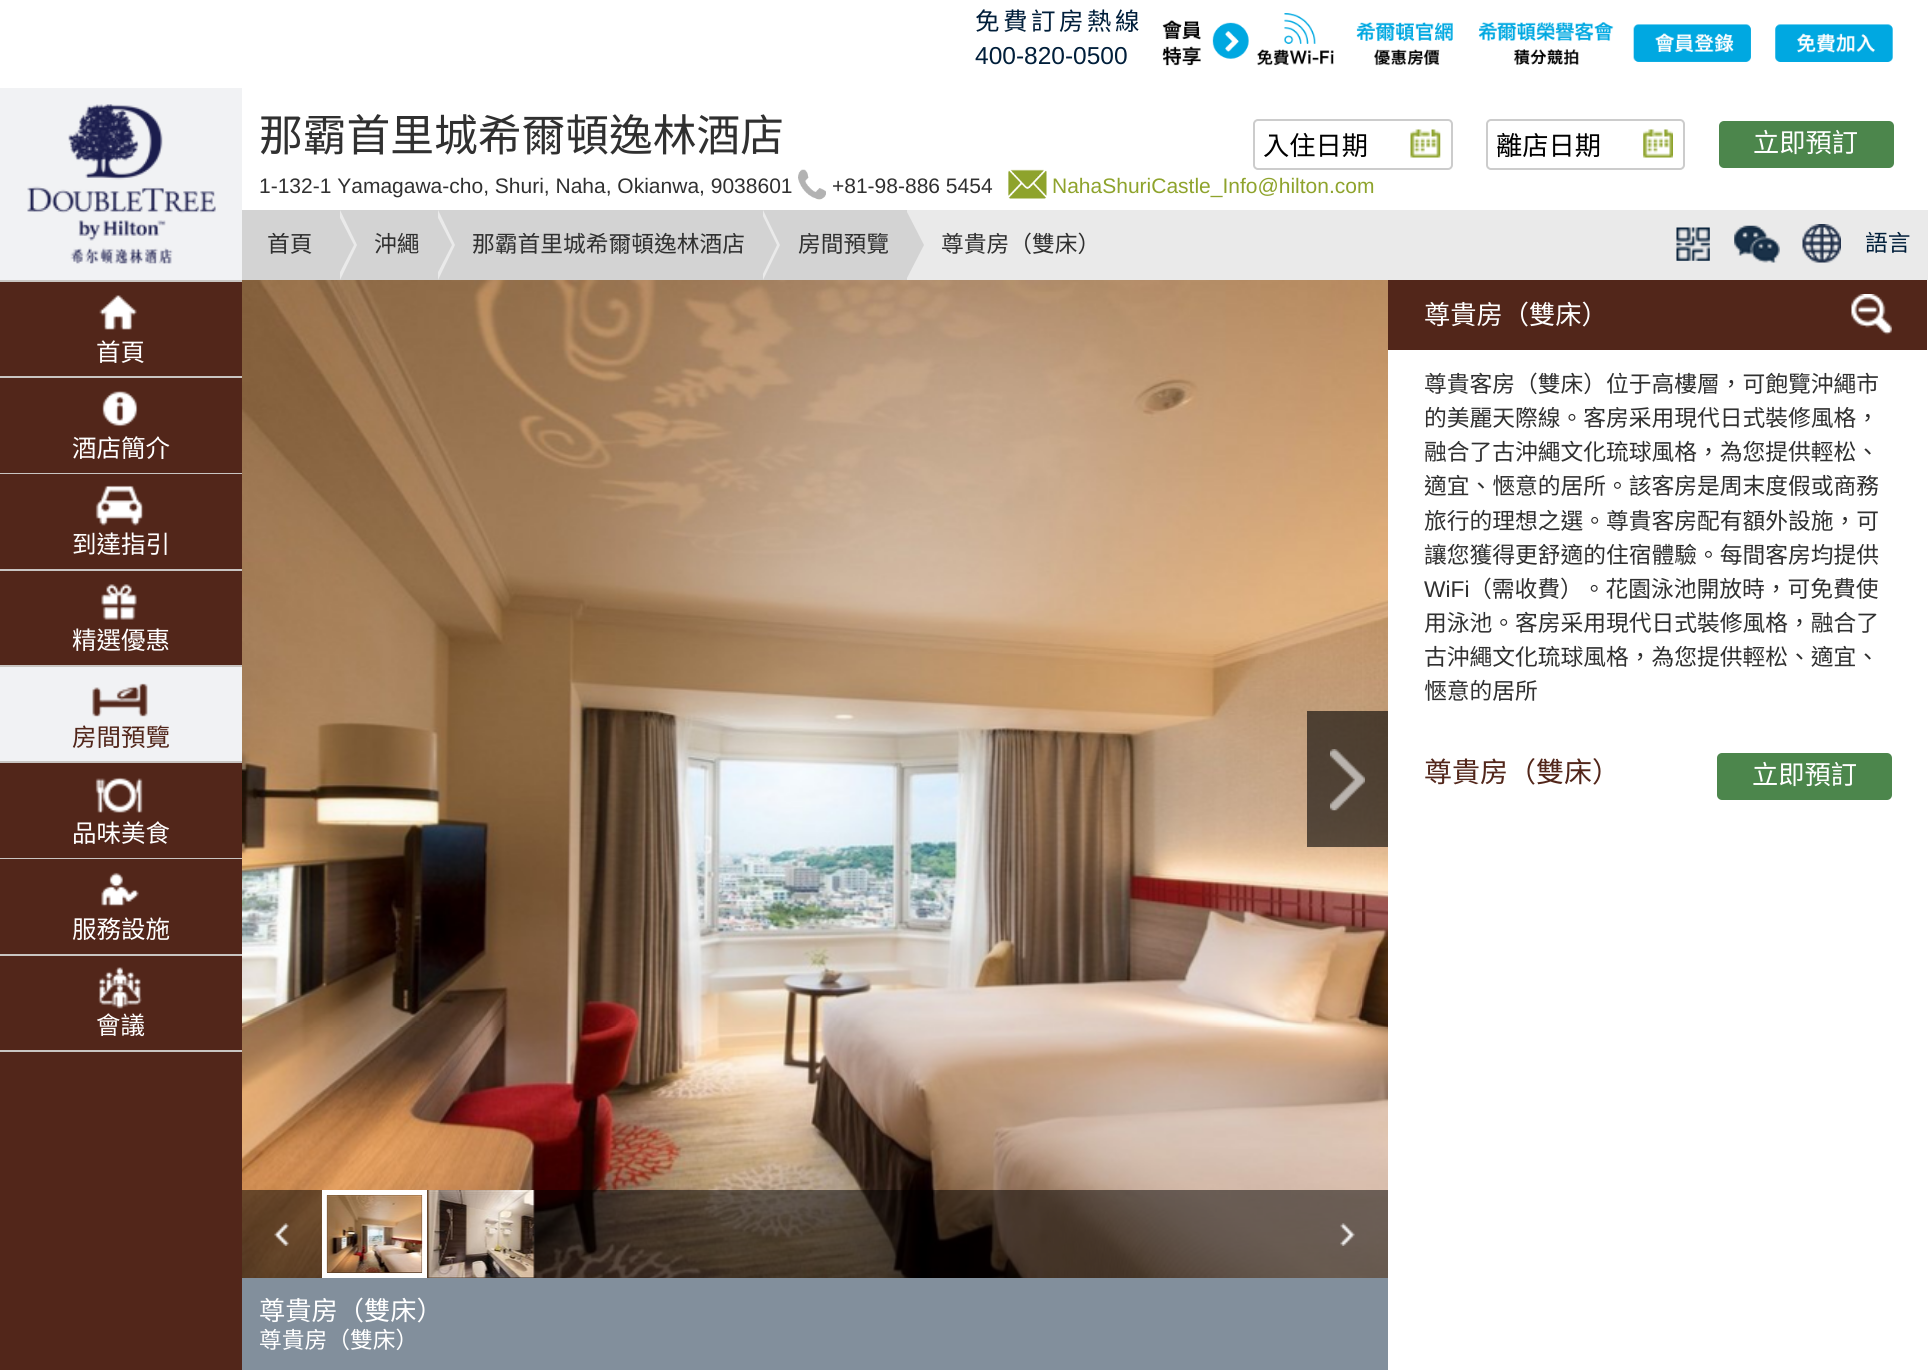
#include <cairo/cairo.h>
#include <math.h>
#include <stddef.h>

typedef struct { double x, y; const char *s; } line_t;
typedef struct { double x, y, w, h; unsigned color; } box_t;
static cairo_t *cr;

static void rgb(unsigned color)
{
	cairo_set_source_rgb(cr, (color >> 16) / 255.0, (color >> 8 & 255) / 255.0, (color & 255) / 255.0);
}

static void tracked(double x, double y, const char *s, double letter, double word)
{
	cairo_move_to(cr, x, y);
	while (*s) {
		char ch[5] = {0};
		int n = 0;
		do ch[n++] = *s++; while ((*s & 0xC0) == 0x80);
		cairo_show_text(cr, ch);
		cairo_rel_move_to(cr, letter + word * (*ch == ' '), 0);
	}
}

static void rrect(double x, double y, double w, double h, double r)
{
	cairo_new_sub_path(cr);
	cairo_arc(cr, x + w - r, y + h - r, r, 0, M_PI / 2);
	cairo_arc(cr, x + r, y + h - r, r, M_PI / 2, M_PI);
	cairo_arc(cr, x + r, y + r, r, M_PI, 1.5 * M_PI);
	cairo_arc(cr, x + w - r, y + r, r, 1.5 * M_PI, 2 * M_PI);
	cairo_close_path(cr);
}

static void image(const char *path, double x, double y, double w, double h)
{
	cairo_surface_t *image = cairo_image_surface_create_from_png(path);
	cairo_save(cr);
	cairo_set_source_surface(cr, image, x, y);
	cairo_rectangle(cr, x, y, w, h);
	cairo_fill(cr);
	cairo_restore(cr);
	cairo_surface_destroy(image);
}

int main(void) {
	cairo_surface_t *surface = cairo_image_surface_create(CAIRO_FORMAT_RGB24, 1928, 1370);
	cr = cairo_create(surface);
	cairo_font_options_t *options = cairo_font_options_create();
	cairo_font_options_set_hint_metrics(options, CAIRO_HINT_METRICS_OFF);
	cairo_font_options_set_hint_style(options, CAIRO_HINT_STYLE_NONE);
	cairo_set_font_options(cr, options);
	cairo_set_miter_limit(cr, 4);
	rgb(0xffffff);
	cairo_paint(cr);
	image("img/1.png", 1162, 13, 291, 53);
	image("img/2.png", 1478, 22, 136, 43);
	image("img/3.png", 1633, 24, 118, 38);
	image("img/4.png", 1775, 24, 118, 38);
	rgb(0xf1f2f4);
	cairo_rectangle(cr, 0, 88, 242, 192);
	cairo_fill(cr);
	image("img/5.png", 27, 104, 189, 160);
	image("img/6.png", 798, 169, 28, 31);
	image("img/7.png", 1008, 169, 39, 30);
	rrect(1254, 120, 198, 49, 4);
	rgb(0xcccccc);
	cairo_stroke(cr);
	image("img/8.png", 1410, 129, 31, 29);
	rrect(1487, 120, 197, 49, 4);
	cairo_stroke(cr);
	image("img/9.png", 1643, 129, 30, 29);
	rgb(0x4c864c);
	rrect(1719, 121, 175, 47, 5);
	cairo_fill(cr);
	rgb(0xeaeaea);
	cairo_rectangle(cr, 907, 210, 1021, 70);
	cairo_fill(cr);
	rgb(0xd3d3d3);
	cairo_rectangle(cr, 242, 210, 665, 70);
	cairo_fill(cr);
	rgb(0xeaeaea);
	cairo_new_path(cr);
	cairo_move_to(cr, 340, 280);
	cairo_line_to(cr, 340, 210);
	cairo_line_to(cr, 357, 245);
	cairo_close_path(cr);
	cairo_fill(cr);
	rgb(0xd3d3d3);
	cairo_new_path(cr);
	cairo_move_to(cr, 336, 280);
	cairo_line_to(cr, 336, 210);
	cairo_line_to(cr, 354, 245);
	cairo_close_path(cr);
	cairo_fill(cr);
	rgb(0xeaeaea);
	cairo_new_path(cr);
	cairo_move_to(cr, 438, 280);
	cairo_line_to(cr, 438, 210);
	cairo_line_to(cr, 455, 245);
	cairo_close_path(cr);
	cairo_fill(cr);
	rgb(0xd3d3d3);
	cairo_new_path(cr);
	cairo_move_to(cr, 434, 280);
	cairo_line_to(cr, 434, 210);
	cairo_line_to(cr, 452, 245);
	cairo_close_path(cr);
	cairo_fill(cr);
	rgb(0xeaeaea);
	cairo_new_path(cr);
	cairo_move_to(cr, 763, 280);
	cairo_line_to(cr, 763, 210);
	cairo_line_to(cr, 780, 245);
	cairo_close_path(cr);
	cairo_fill(cr);
	rgb(0xd3d3d3);
	cairo_new_path(cr);
	cairo_move_to(cr, 760, 280);
	cairo_line_to(cr, 760, 210);
	cairo_line_to(cr, 777, 245);
	cairo_close_path(cr);
	cairo_fill(cr);
	cairo_new_path(cr);
	cairo_move_to(cr, 906, 280);
	cairo_line_to(cr, 906, 210);
	cairo_line_to(cr, 924, 245);
	cairo_close_path(cr);
	cairo_fill(cr);
	image("img/10.png", 1676, 227, 34, 34);
	image("img/11.png", 1734, 225, 46, 38);
	image("img/12.png", 1802, 224, 39, 39);
	{
		static const box_t items[] = {
			{0, 282, 242, 1088, 0x52261a},
			{0, 280, 242, 2, 0xc9c5c2},
			{0, 376, 242, 2, 0xc9c5c2},
		};
		for (size_t i = 0; i < sizeof items / sizeof *items; i++) {
			rgb(items[i].color);
			cairo_rectangle(cr, items[i].x, items[i].y, items[i].w, items[i].h);
			cairo_fill(cr);
		}
	}
	image("img/13.png", 99, 295, 38, 35);
	cairo_rectangle(cr, 0, 473, 242, 1);
	cairo_fill(cr);
	image("img/14.png", 102, 390, 36, 37);
	cairo_rectangle(cr, 0, 569, 242, 2);
	cairo_fill(cr);
	image("img/15.png", 95, 485, 49, 41);
	cairo_rectangle(cr, 0, 665, 242, 2);
	cairo_fill(cr);
	image("img/16.png", 101, 584, 36, 36);
	cairo_rectangle(cr, 0, 761, 242, 2);
	cairo_fill(cr);
	rgb(0xf1f2f4);
	cairo_rectangle(cr, 0, 667, 242, 94);
	cairo_fill(cr);
	image("img/17.png", 92, 683, 56, 34);
	rgb(0xc9c5c2);
	cairo_rectangle(cr, 0, 858, 242, 1);
	cairo_fill(cr);
	image("img/18.png", 95, 777, 48, 36);
	cairo_rectangle(cr, 0, 954, 242, 2);
	cairo_fill(cr);
	image("img/19.png", 101, 872, 38, 35);
	cairo_rectangle(cr, 0, 1050, 242, 2);
	cairo_fill(cr);
	image("img/20.png", 98, 967, 44, 42);
	rgb(0x52261a);
	cairo_rectangle(cr, 1388, 280, 539, 70);
	cairo_fill(cr);
	image("img/21.png", 1851, 294, 41, 41);
	rgb(0x4c864c);
	rrect(1717, 753, 175, 47, 5);
	cairo_fill(cr);
	image("img/27.png", 242, 280, 1146, 998);
	cairo_set_source_rgba(cr, 0, 0, 0, 0.6);
	cairo_rectangle(cr, 1307, 711, 81, 136);
	cairo_fill(cr);
	image("img/22.png", 1330, 749, 35, 62);
	cairo_set_source_rgba(cr, 0, 0, 0, 0.5);
	cairo_rectangle(cr, 242, 1190, 1146, 88);
	cairo_fill(cr);
	image("img/23.png", 274, 1223, 15, 23);
	cairo_rectangle(cr, 324.5, 1192.5, 100, 83);
	rgb(0xffffff);
	cairo_set_line_width(cr, 5);
	cairo_stroke(cr);
	image("img/24.png", 326, 1195, 97, 78);
	image("img/25.png", 428, 1190, 107, 88);
	image("img/26.png", 1340, 1223, 15, 23);
	rgb(0x828f9c);
	cairo_rectangle(cr, 242, 1278, 1146, 92);
	cairo_fill(cr);
	cairo_select_font_face(cr, "Noto Sans CJK HK", CAIRO_FONT_SLANT_NORMAL, CAIRO_FONT_WEIGHT_NORMAL);
	cairo_set_font_size(cr, 24.5);
	rgb(0x001e3a);
	tracked(975, 30, "免費訂房熱線", 3.5, 0);
	cairo_select_font_face(cr, "Liberation Sans", CAIRO_FONT_SLANT_NORMAL, CAIRO_FONT_WEIGHT_NORMAL);
	cairo_move_to(cr, 975, 64);
	cairo_show_text(cr, "400-820-0500");
	cairo_select_font_face(cr, "Noto Sans CJK HK", CAIRO_FONT_SLANT_NORMAL, CAIRO_FONT_WEIGHT_NORMAL);
	cairo_set_font_size(cr, 43.75);
	rgb(0x303030);
	cairo_move_to(cr, 259, 151);
	cairo_show_text(cr, "那霸首里城希爾頓逸林酒店");
	cairo_select_font_face(cr, "Liberation Sans", CAIRO_FONT_SLANT_NORMAL, CAIRO_FONT_WEIGHT_NORMAL);
	cairo_set_font_size(cr, 21);
	cairo_move_to(cr, 259, 193);
	cairo_show_text(cr, "1-132-1 Yamagawa-cho, Shuri, Naha, Okianwa, 9038601");
	cairo_move_to(cr, 832, 193);
	cairo_show_text(cr, "+81-98-886 5454");
	rgb(0x8ea32c);
	cairo_move_to(cr, 1052, 193);
	cairo_show_text(cr, "NahaShuriCastle_Info@hilton.com");
	cairo_select_font_face(cr, "Noto Sans CJK HK", CAIRO_FONT_SLANT_NORMAL, CAIRO_FONT_WEIGHT_NORMAL);
	cairo_set_font_size(cr, 26.25);
	rgb(0x000000);
	cairo_move_to(cr, 1263, 155);
	cairo_show_text(cr, "入住日期");
	cairo_move_to(cr, 1496, 155);
	cairo_show_text(cr, "離店日期");
	rgb(0xffffff);
	cairo_move_to(cr, 1753, 152);
	cairo_show_text(cr, "立即預訂");
	cairo_set_font_size(cr, 22.75);
	rgb(0x303030);
	{
		static const line_t items[] = {
			{267, 252, "首頁"},
			{374, 252, "沖繩"},
			{472, 252, "那霸首里城希爾頓逸林酒店"},
			{798, 252, "房間預覽"},
			{941, 252, "尊貴房（雙床）"},
		};
		for (size_t i = 0; i < sizeof items / sizeof *items; i++) {
			cairo_move_to(cr, items[i].x, items[i].y);
			cairo_show_text(cr, items[i].s);
		}
	}
	rgb(0x001e3a);
	cairo_move_to(cr, 1865, 251);
	cairo_show_text(cr, "語言");
	cairo_set_font_size(cr, 24.5);
	rgb(0xffffff);
	{
		static const line_t items[] = {
			{96, 361, "首頁"},
			{72, 457, "酒店簡介"},
			{72, 553, "到達指引"},
			{72, 649, "精選優惠"},
		};
		for (size_t i = 0; i < sizeof items / sizeof *items; i++) {
			cairo_move_to(cr, items[i].x, items[i].y);
			cairo_show_text(cr, items[i].s);
		}
	}
	rgb(0x52261a);
	cairo_move_to(cr, 72, 746);
	cairo_show_text(cr, "房間預覽");
	rgb(0xffffff);
	{
		static const line_t items[] = {
			{72, 842, "品味美食"},
			{72, 938, "服務設施"},
			{96, 1034, "會議"},
		};
		for (size_t i = 0; i < sizeof items / sizeof *items; i++) {
			cairo_move_to(cr, items[i].x, items[i].y);
			cairo_show_text(cr, items[i].s);
		}
	}
	cairo_set_font_size(cr, 26.25);
	cairo_move_to(cr, 1424, 324);
	cairo_show_text(cr, "尊貴房（雙床）");
	cairo_set_font_size(cr, 22.75);
	rgb(0x303030);
	{
		static const line_t items[] = {
			{1424, 392, "尊貴客房（雙床）位于高樓層，可飽覽沖繩市"},
			{1424, 426, "的美麗天際線。客房采用現代日式裝修風格，"},
			{1424, 460, "融合了古沖繩文化琉球風格，為您提供輕松、"},
			{1424, 494, "適宜、愜意的居所。該客房是周末度假或商務"},
			{1424, 529, "旅行的理想之選。尊貴客房配有額外設施，可"},
			{1424, 563, "讓您獲得更舒適的住宿體驗。每間客房均提供"},
		};
		for (size_t i = 0; i < sizeof items / sizeof *items; i++) {
			cairo_move_to(cr, items[i].x, items[i].y);
			cairo_show_text(cr, items[i].s);
		}
	}
	cairo_select_font_face(cr, "Liberation Sans", CAIRO_FONT_SLANT_NORMAL, CAIRO_FONT_WEIGHT_NORMAL);
	cairo_move_to(cr, 1424, 597);
	cairo_show_text(cr, "WiFi");
	cairo_select_font_face(cr, "Noto Sans CJK HK", CAIRO_FONT_SLANT_NORMAL, CAIRO_FONT_WEIGHT_NORMAL);
	{
		static const line_t items[] = {
			{1469, 597, "（需收費）。花園泳池開放時，可免費使"},
			{1424, 631, "用泳池。客房采用現代日式裝修風格，融合了"},
			{1424, 665, "古沖繩文化琉球風格，為您提供輕松、適宜、"},
			{1424, 699, "愜意的居所"},
		};
		for (size_t i = 0; i < sizeof items / sizeof *items; i++) {
			cairo_move_to(cr, items[i].x, items[i].y);
			cairo_show_text(cr, items[i].s);
		}
	}
	cairo_set_font_size(cr, 28);
	rgb(0x52261a);
	cairo_move_to(cr, 1424, 782);
	cairo_show_text(cr, "尊貴房（雙床）");
	cairo_set_font_size(cr, 26.25);
	rgb(0xffffff);
	cairo_move_to(cr, 1752, 784);
	cairo_show_text(cr, "立即預訂");
	cairo_move_to(cr, 259, 1320);
	cairo_show_text(cr, "尊貴房（雙床）");
	cairo_set_font_size(cr, 22.75);
	cairo_move_to(cr, 259, 1348);
	cairo_show_text(cr, "尊貴房（雙床）");
	cairo_surface_write_to_png(surface, "page.png");
	cairo_font_options_destroy(options);
	cairo_destroy(cr);
	cairo_surface_destroy(surface);
	return 0;
}
